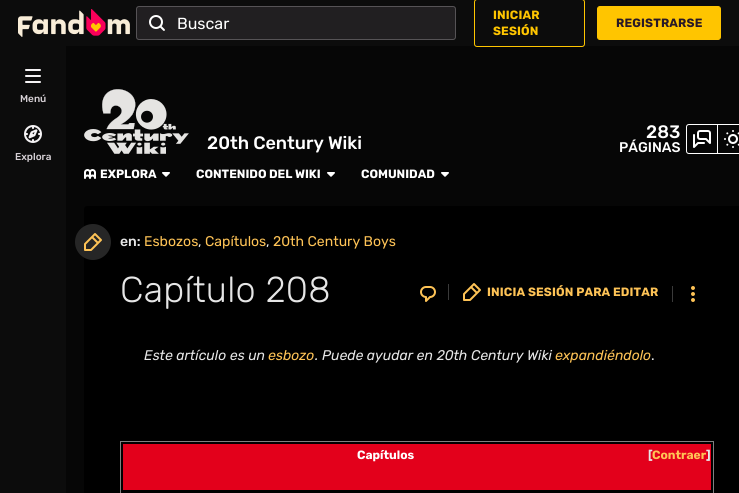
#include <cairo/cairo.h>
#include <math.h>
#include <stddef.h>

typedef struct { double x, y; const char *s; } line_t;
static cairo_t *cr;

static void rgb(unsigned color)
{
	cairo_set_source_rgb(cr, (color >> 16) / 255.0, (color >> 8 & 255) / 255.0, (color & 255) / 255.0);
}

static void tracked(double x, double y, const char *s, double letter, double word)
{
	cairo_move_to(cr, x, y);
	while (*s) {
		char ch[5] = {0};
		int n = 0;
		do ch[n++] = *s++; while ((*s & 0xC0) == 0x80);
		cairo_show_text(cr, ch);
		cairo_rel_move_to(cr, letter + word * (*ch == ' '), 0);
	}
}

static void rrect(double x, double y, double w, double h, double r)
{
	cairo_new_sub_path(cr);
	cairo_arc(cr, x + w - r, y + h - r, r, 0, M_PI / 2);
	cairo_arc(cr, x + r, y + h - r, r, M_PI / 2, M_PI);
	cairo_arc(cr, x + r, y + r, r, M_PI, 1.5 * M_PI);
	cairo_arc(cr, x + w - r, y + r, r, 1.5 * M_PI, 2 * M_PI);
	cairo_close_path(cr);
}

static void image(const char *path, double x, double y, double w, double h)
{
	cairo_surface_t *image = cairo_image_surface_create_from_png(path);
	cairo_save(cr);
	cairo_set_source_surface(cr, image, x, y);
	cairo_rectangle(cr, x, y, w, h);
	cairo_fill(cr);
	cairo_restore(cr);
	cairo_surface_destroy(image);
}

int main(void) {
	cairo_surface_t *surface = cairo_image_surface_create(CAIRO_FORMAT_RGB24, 739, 493);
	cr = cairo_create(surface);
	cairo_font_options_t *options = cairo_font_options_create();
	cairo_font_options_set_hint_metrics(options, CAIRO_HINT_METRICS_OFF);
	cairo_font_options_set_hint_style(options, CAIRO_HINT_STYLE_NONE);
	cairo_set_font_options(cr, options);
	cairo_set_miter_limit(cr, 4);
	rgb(0x060606);
	cairo_paint(cr);
	rgb(0x0c0c0c);
	cairo_rectangle(cr, 0, 0, 739, 46);
	cairo_fill(cr);
	image("img/1.png", 18, 9, 112, 28);
	rgb(0x211f21);
	rrect(136, 6, 320, 34, 3);
	cairo_fill(cr);
	rrect(136.5, 6.5, 319, 33, 2.5);
	cairo_set_source_rgba(cr, 0.961, 0.953, 0.961, 0.25);
	cairo_set_line_width(cr, 1);
	cairo_stroke(cr);
	image("img/2.png", 149, 15, 16, 16);
	rrect(474.5, -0.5, 110, 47, 2.5);
	rgb(0xffc500);
	cairo_stroke(cr);
	rrect(597.5, 6.5, 123, 33, 2.5);
	cairo_fill_preserve(cr);
	cairo_stroke(cr);
	rgb(0x0c0c0c);
	cairo_rectangle(cr, 0, 46, 66, 447);
	cairo_fill(cr);
	image("img/3.png", 25, 69, 16, 14);
	image("img/4.png", 24, 125, 18, 18);
	image("img/5.png", 84, 89, 105, 65);
	cairo_new_path(cr);
	cairo_move_to(cr, 689, 124.5);
	cairo_line_to(cr, 717.5, 124.5);
	cairo_line_to(cr, 717.5, 153.5);
	cairo_line_to(cr, 689, 153.5);
	cairo_curve_to(cr, 687.5, 153.5, 686.5, 152.5, 686.5, 151);
	cairo_line_to(cr, 686.5, 127);
	cairo_curve_to(cr, 686.5, 125.5, 687.5, 124.5, 689, 124.5);
	cairo_close_path(cr);
	rgb(0xffffff);
	cairo_stroke(cr);
	image("img/6.png", 693, 130, 18, 18);
	cairo_rectangle(cr, 717.5, 124.5, 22, 29);
	cairo_stroke(cr);
	image("img/7.png", 724, 130, 15, 18);
	image("img/8.png", 84, 169, 12, 10);
	image("img/9.png", 162, 172, 8, 5);
	image("img/9.png", 327, 172, 8, 5);
	image("img/9.png", 441, 172, 8, 5);
	rgb(0x000000);
	cairo_new_path(cr);
	cairo_move_to(cr, 87, 206);
	cairo_line_to(cr, 739, 206);
	cairo_curve_to(cr, 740.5, 206, 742, 207.5, 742, 209);
	cairo_line_to(cr, 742, 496);
	cairo_line_to(cr, 84, 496);
	cairo_line_to(cr, 84, 209);
	cairo_curve_to(cr, 84, 207.5, 85.5, 206, 87, 206);
	cairo_close_path(cr);
	cairo_fill(cr);
	rgb(0x262626);
	cairo_arc(cr, 93, 242, 18, 0, 2 * M_PI);
	cairo_fill(cr);
	image("img/10.png", 84, 233, 18, 18);
	image("img/11.png", 420, 286, 16, 16);
	rgb(0x3a3a3a);
	cairo_rectangle(cr, 448, 284, 1, 16);
	cairo_fill(cr);
	image("img/12.png", 463, 283, 18, 18);
	cairo_rectangle(cr, 672, 286, 1, 16);
	cairo_fill(cr);
	image("img/13.png", 691, 286, 4, 16);
	cairo_rectangle(cr, 120.5, 441.5, 593, 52);
	rgb(0x808080);
	cairo_stroke(cr);
	rgb(0xe3001b);
	cairo_rectangle(cr, 123, 444, 588, 46);
	cairo_fill(cr);
	cairo_select_font_face(cr, "Rubik", CAIRO_FONT_SLANT_NORMAL, CAIRO_FONT_WEIGHT_NORMAL);
	cairo_set_font_size(cr, 16);
	rgb(0xffffff);
	cairo_move_to(cr, 177, 29);
	cairo_show_text(cr, "Buscar");
	cairo_select_font_face(cr, "Rubik", CAIRO_FONT_SLANT_NORMAL, CAIRO_FONT_WEIGHT_BOLD);
	cairo_set_font_size(cr, 12);
	rgb(0xffc500);
	tracked(493, 19, "INICIAR", 0.15, 0);
	tracked(493, 35, "SESIÓN", 0.15, 0);
	rgb(0x291927);
	tracked(616, 27, "REGISTRARSE", 0.15, 0);
	cairo_select_font_face(cr, "Rubik Medium", CAIRO_FONT_SLANT_NORMAL, CAIRO_FONT_WEIGHT_NORMAL);
	cairo_set_font_size(cr, 10);
	rgb(0xd6d0d5);
	cairo_move_to(cr, 20, 102);
	cairo_show_text(cr, "Menú");
	cairo_move_to(cr, 15, 160);
	cairo_show_text(cr, "Explora");
	cairo_set_font_size(cr, 18);
	rgb(0xffffff);
	cairo_move_to(cr, 207, 149);
	cairo_show_text(cr, "20th Century Wiki");
	cairo_move_to(cr, 646, 138);
	cairo_show_text(cr, "283");
	cairo_set_font_size(cr, 14);
	cairo_move_to(cr, 619, 152);
	cairo_show_text(cr, "PÁGINAS");
	cairo_select_font_face(cr, "Rubik", CAIRO_FONT_SLANT_NORMAL, CAIRO_FONT_WEIGHT_BOLD);
	cairo_set_font_size(cr, 12);
	{
		static const line_t items[] = {
			{100, 178, "EXPLORA"},
			{196, 178, "CONTENIDO DEL WIKI"},
			{361, 178, "COMUNIDAD"},
		};
		for (size_t i = 0; i < sizeof items / sizeof *items; i++) {
			cairo_move_to(cr, items[i].x, items[i].y);
			cairo_show_text(cr, items[i].s);
		}
	}
	cairo_select_font_face(cr, "Rubik Medium", CAIRO_FONT_SLANT_NORMAL, CAIRO_FONT_WEIGHT_NORMAL);
	cairo_set_font_size(cr, 14);
	rgb(0xe6e6e6);
	cairo_move_to(cr, 120, 246);
	cairo_show_text(cr, "en:");
	cairo_select_font_face(cr, "Rubik", CAIRO_FONT_SLANT_NORMAL, CAIRO_FONT_WEIGHT_NORMAL);
	rgb(0xfec356);
	cairo_move_to(cr, 144, 246);
	cairo_show_text(cr, "Esbozos");
	rgb(0xe6e6e6);
	cairo_move_to(cr, 198, 246);
	cairo_show_text(cr, ",");
	rgb(0xfec356);
	cairo_move_to(cr, 205, 246);
	cairo_show_text(cr, "Capítulos");
	rgb(0xe6e6e6);
	cairo_move_to(cr, 266, 246);
	cairo_show_text(cr, ",");
	rgb(0xfec356);
	cairo_move_to(cr, 273, 246);
	cairo_show_text(cr, "20th Century Boys");
	cairo_select_font_face(cr, "Rubik Light", CAIRO_FONT_SLANT_NORMAL, CAIRO_FONT_WEIGHT_NORMAL);
	cairo_set_font_size(cr, 36);
	rgb(0xe6e6e6);
	tracked(120, 302, "Capítulo 208", 0.25, 0);
	cairo_select_font_face(cr, "Rubik", CAIRO_FONT_SLANT_NORMAL, CAIRO_FONT_WEIGHT_BOLD);
	cairo_set_font_size(cr, 12);
	rgb(0xfec356);
	tracked(487, 296, "INICIA SESIÓN PARA EDITAR", 0.15, 0);
	cairo_select_font_face(cr, "Rubik", CAIRO_FONT_SLANT_ITALIC, CAIRO_FONT_WEIGHT_NORMAL);
	cairo_set_font_size(cr, 14);
	rgb(0xe6e6e6);
	cairo_move_to(cr, 144, 360);
	cairo_show_text(cr, "Este artículo es un");
	rgb(0xfec356);
	cairo_move_to(cr, 268, 360);
	cairo_show_text(cr, "esbozo");
	rgb(0xe6e6e6);
	cairo_move_to(cr, 315, 360);
	cairo_show_text(cr, ". Puede ayudar en 20th Century Wiki");
	rgb(0xfec356);
	cairo_move_to(cr, 555, 360);
	cairo_show_text(cr, "expandiéndolo");
	cairo_select_font_face(cr, "Rubik", CAIRO_FONT_SLANT_NORMAL, CAIRO_FONT_WEIGHT_NORMAL);
	rgb(0xe6e6e6);
	cairo_move_to(cr, 651, 360);
	cairo_show_text(cr, ".");
	cairo_select_font_face(cr, "Rubik", CAIRO_FONT_SLANT_NORMAL, CAIRO_FONT_WEIGHT_BOLD);
	cairo_set_font_size(cr, 12);
	rgb(0xffffff);
	cairo_move_to(cr, 357, 459);
	cairo_show_text(cr, "Capítulos");
	rgb(0xe6e6e6);
	cairo_move_to(cr, 648, 459);
	cairo_show_text(cr, "[");
	rgb(0xfec356);
	cairo_move_to(cr, 652, 459);
	cairo_show_text(cr, "Contraer");
	rgb(0xe6e6e6);
	cairo_move_to(cr, 706, 459);
	cairo_show_text(cr, "]");
	cairo_surface_write_to_png(surface, "page.png");
	cairo_font_options_destroy(options);
	cairo_destroy(cr);
	cairo_surface_destroy(surface);
	return 0;
}
